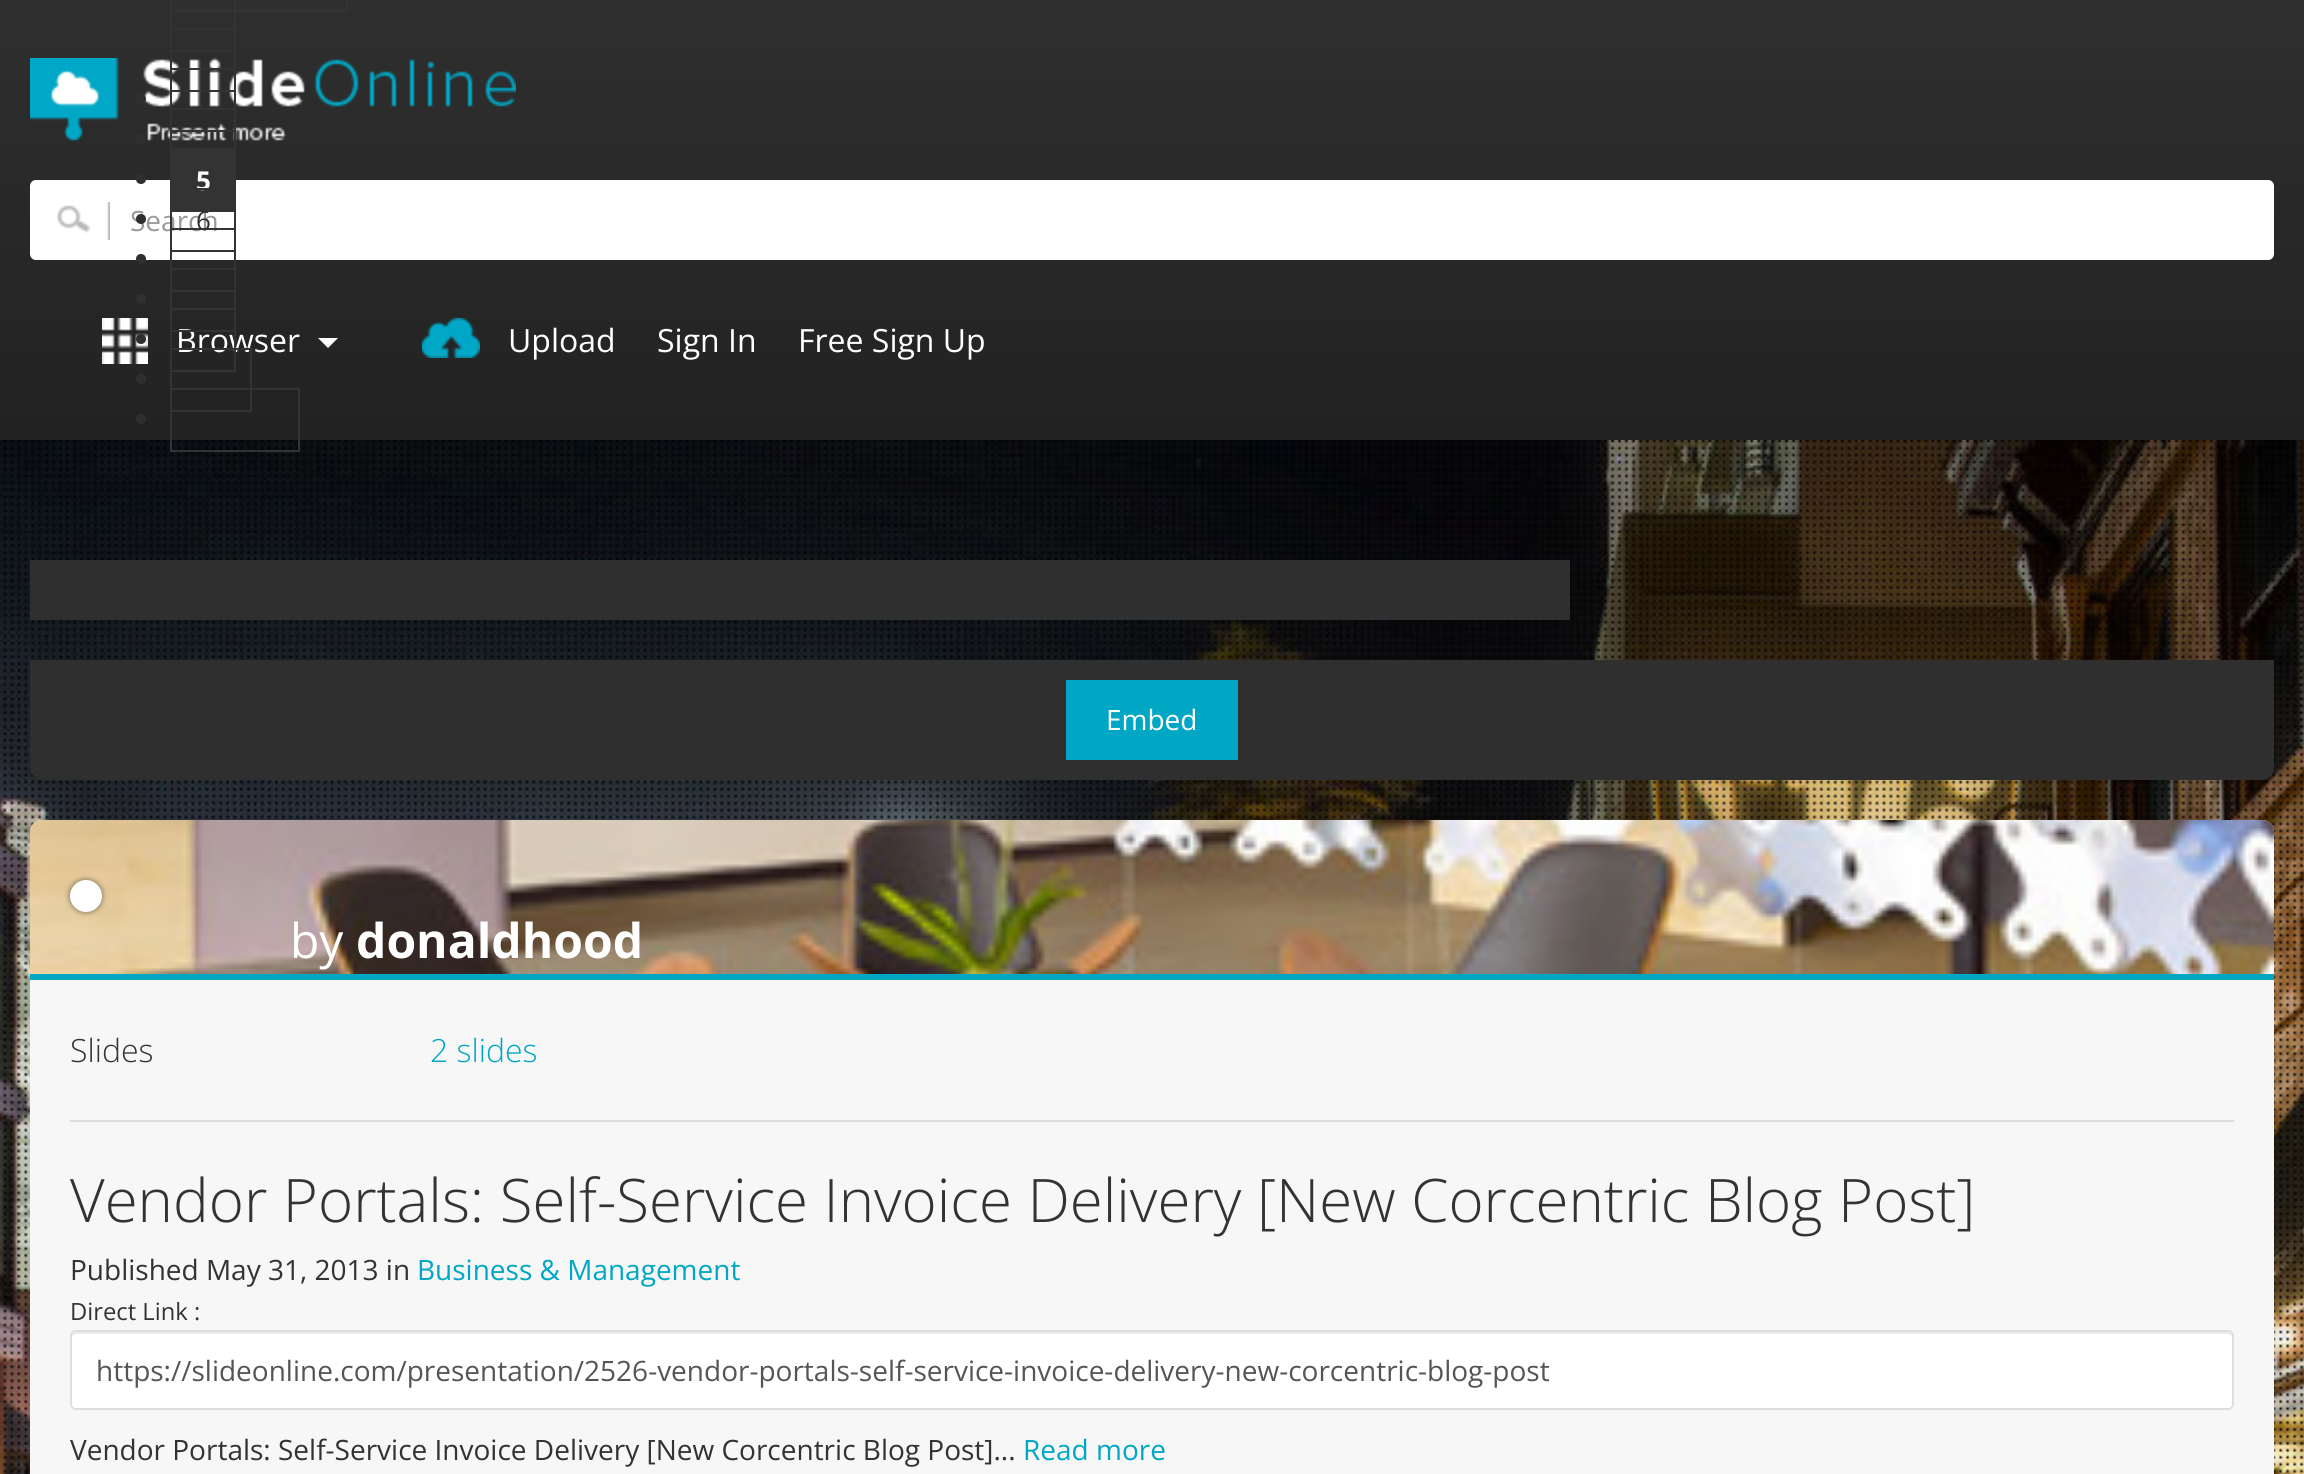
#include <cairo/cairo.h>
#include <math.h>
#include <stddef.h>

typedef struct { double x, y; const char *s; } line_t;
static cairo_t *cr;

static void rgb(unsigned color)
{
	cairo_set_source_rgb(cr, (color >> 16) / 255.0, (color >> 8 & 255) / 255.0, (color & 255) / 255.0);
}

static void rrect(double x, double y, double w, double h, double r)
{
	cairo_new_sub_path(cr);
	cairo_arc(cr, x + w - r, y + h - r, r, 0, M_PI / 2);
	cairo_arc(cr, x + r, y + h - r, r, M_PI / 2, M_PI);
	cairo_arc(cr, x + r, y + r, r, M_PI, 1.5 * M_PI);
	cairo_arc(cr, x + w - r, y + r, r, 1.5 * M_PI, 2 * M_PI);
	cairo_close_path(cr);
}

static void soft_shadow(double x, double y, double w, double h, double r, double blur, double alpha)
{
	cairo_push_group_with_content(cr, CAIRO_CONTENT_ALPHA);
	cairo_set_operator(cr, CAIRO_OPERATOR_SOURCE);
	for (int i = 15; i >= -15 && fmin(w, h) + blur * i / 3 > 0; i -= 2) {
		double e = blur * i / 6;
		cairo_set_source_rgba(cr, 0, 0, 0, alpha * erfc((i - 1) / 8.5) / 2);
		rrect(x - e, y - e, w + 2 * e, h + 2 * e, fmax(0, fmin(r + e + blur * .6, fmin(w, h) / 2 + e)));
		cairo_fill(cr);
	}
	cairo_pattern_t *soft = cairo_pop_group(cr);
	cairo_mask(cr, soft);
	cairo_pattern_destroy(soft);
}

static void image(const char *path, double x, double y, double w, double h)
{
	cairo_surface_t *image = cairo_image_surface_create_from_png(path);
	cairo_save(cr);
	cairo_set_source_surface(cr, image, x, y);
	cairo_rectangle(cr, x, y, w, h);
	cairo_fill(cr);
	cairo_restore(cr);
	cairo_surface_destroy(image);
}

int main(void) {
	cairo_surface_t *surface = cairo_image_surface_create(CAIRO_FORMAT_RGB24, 2304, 1474);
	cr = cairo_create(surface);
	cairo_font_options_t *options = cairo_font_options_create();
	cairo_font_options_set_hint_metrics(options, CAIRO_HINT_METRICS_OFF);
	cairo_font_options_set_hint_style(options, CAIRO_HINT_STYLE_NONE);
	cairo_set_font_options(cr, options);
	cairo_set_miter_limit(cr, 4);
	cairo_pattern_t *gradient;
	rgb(0xffffff);
	cairo_paint(cr);
	gradient = cairo_pattern_create_linear(1152, 0, 1152, 440);
	cairo_pattern_add_color_stop_rgba(gradient, 0, 0.184, 0.184, 0.184, 1);
	cairo_pattern_add_color_stop_rgba(gradient, 1, 0.133, 0.133, 0.133, 1);
	cairo_set_source(cr, gradient);
	cairo_pattern_destroy(gradient);
	cairo_rectangle(cr, 0, 0, 2304, 440);
	cairo_fill(cr);
	cairo_rectangle(cr, 171, -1, 176, 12);
	rgb(0x333333);
	cairo_stroke(cr);
	cairo_rectangle(cr, 171, -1, 64, 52);
	cairo_stroke(cr);
	image("img/3.png", 30, 58, 486, 83);
	cairo_rectangle(cr, 171, 29, 64, 62);
	cairo_stroke(cr);
	rgb(0x2f2f2f);
	cairo_arc(cr, 141, 99, 5, 0, 2 * M_PI);
	cairo_fill(cr);
	cairo_rectangle(cr, 171, 69, 64, 62);
	rgb(0x333333);
	cairo_stroke(cr);
	rgb(0x2f2f2f);
	cairo_arc(cr, 141, 139, 5, 0, 2 * M_PI);
	cairo_fill(cr);
	cairo_rectangle(cr, 171, 109, 64, 62);
	rgb(0x333333);
	cairo_stroke(cr);
	rgb(0xffffff);
	rrect(30, 180, 2244, 80, 6);
	cairo_fill(cr);
	rgb(0x2f2f2f);
	cairo_arc(cr, 141, 179, 5, 0, 2 * M_PI);
	cairo_fill(cr);
	cairo_arc(cr, 141, 259, 5, 0, 2 * M_PI);
	cairo_fill(cr);
	cairo_arc(cr, 141, 299, 5, 0, 2 * M_PI);
	cairo_fill(cr);
	image("img/5.png", 102, 318, 46, 46);
	cairo_arc(cr, 141, 339, 5, 0, 2 * M_PI);
	cairo_fill(cr);
	cairo_arc(cr, 141, 379, 5, 0, 2 * M_PI);
	cairo_fill(cr);
	cairo_arc(cr, 141, 419, 5, 0, 2 * M_PI);
	cairo_fill(cr);
	image("img/1.png", 0, 440, 2304, 1034);
	cairo_rectangle(cr, 30, 560, 1540, 60);
	cairo_fill(cr);
	cairo_new_path(cr);
	cairo_move_to(cr, 30, 660);
	cairo_line_to(cr, 2274, 660);
	cairo_line_to(cr, 2274, 768);
	cairo_curve_to(cr, 2274, 774.5, 2268.5, 780, 2262, 780);
	cairo_line_to(cr, 42, 780);
	cairo_curve_to(cr, 35.5, 780, 30, 774.5, 30, 768);
	cairo_close_path(cr);
	cairo_fill(cr);
	rgb(0x00a7c5);
	cairo_rectangle(cr, 1066, 680, 172, 80);
	cairo_fill(cr);
	rgb(0xf7f7f7);
	rrect(30, 820, 2244, 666, 12);
	cairo_fill(cr);
	image("img/2.png", 30, 820, 2244, 154);
	rgb(0x00a7c5);
	cairo_rectangle(cr, 30, 974, 2244, 6);
	cairo_fill(cr);
	rgb(0x000000);
	soft_shadow(70, 880, 32, 32, 16, 3, 0.5);
	rgb(0xffffff);
	cairo_arc(cr, 86, 896, 16, 0, 2 * M_PI);
	cairo_fill(cr);
	rgb(0xdddddd);
	cairo_rectangle(cr, 70, 1120, 2164, 2);
	cairo_fill(cr);
	rgb(0xffffff);
	rrect(70, 1330, 2164, 80, 6);
	cairo_fill(cr);
	rgb(0xececec);
	cairo_new_path(cr);
	cairo_move_to(cr, 76, 1334);
	cairo_line_to(cr, 2228, 1334);
	cairo_curve_to(cr, 2230, 1334, 2232, 1336, 2232, 1338);
	cairo_line_to(cr, 2232, 1336);
	cairo_curve_to(cr, 2232, 1334, 2230, 1332, 2228, 1332);
	cairo_line_to(cr, 76, 1332);
	cairo_curve_to(cr, 74, 1332, 72, 1334, 72, 1336);
	cairo_line_to(cr, 72, 1338);
	cairo_curve_to(cr, 72, 1336, 74, 1334, 76, 1334);
	cairo_close_path(cr);
	cairo_fill(cr);
	rrect(71, 1331, 2162, 78, 5);
	rgb(0xdddddd);
	cairo_stroke(cr);
	image("img/4.png", 56, 202, 54, 38);
	rgb(0xffffff);
	cairo_new_path(cr);
	cairo_move_to(cr, 318, 338);
	cairo_line_to(cr, 338, 338);
	cairo_line_to(cr, 328, 348);
	cairo_close_path(cr);
	cairo_fill(cr);
	image("img/6.png", 422, 318, 58, 40);
	cairo_select_font_face(cr, "Open Sans", CAIRO_FONT_SLANT_NORMAL, CAIRO_FONT_WEIGHT_NORMAL);
	cairo_set_font_size(cr, 28);
	cairo_move_to(cr, 1106, 730);
	cairo_show_text(cr, "Embed");
	cairo_set_font_size(cr, 48);
	cairo_move_to(cr, 290, 958);
	cairo_show_text(cr, "by");
	cairo_select_font_face(cr, "Open Sans", CAIRO_FONT_SLANT_NORMAL, CAIRO_FONT_WEIGHT_BOLD);
	cairo_move_to(cr, 356, 958);
	cairo_show_text(cr, "donaldhood");
	cairo_select_font_face(cr, "Open Sans Light", CAIRO_FONT_SLANT_NORMAL, CAIRO_FONT_WEIGHT_NORMAL);
	cairo_set_font_size(cr, 32);
	rgb(0x333333);
	cairo_move_to(cr, 70, 1062);
	cairo_show_text(cr, "Slides");
	rgb(0x00a7c5);
	cairo_move_to(cr, 430, 1062);
	cairo_show_text(cr, "2 slides");
	cairo_set_font_size(cr, 60);
	rgb(0x333333);
	cairo_move_to(cr, 70, 1222);
	cairo_show_text(cr, "Vendor Portals: Self-Service Invoice Delivery [New Corcentric Blog Post]");
	cairo_select_font_face(cr, "Open Sans", CAIRO_FONT_SLANT_NORMAL, CAIRO_FONT_WEIGHT_NORMAL);
	cairo_set_font_size(cr, 28);
	cairo_move_to(cr, 70, 1280);
	cairo_show_text(cr, "Published May 31, 2013 in");
	rgb(0x00a7c5);
	cairo_move_to(cr, 417, 1280);
	cairo_show_text(cr, "Business & Management");
	cairo_set_font_size(cr, 23.75);
	rgb(0x333333);
	cairo_move_to(cr, 70, 1320);
	cairo_show_text(cr, "Direct Link :");
	cairo_set_font_size(cr, 28);
	rgb(0x555555);
	cairo_move_to(cr, 96, 1381);
	cairo_show_text(cr, "https://slideonline.com/presentation/2526-vendor-portals-self-service-invoice-delivery-new-corcentric-blog-post");
	rgb(0x333333);
	cairo_move_to(cr, 70, 1460);
	cairo_show_text(cr, "Vendor Portals: Self-Service Invoice Delivery [New Corcentric Blog Post]...");
	rgb(0x00a7c5);
	cairo_move_to(cr, 1023, 1460);
	cairo_show_text(cr, "Read more");
	rgb(0x999999);
	cairo_move_to(cr, 130, 231);
	cairo_show_text(cr, "Search");
	rgb(0x333333);
	cairo_rectangle(cr, 170, 148, 66, 64);
	cairo_fill(cr);
	cairo_select_font_face(cr, "Open Sans", CAIRO_FONT_SLANT_NORMAL, CAIRO_FONT_WEIGHT_BOLD);
	cairo_set_font_size(cr, 26);
	rgb(0xffffff);
	cairo_move_to(cr, 196, 190);
	cairo_show_text(cr, "5");
	cairo_rectangle(cr, 171, 189, 64, 62);
	rgb(0x333333);
	cairo_stroke(cr);
	cairo_rectangle(cr, 171, 229, 64, 62);
	cairo_stroke(cr);
	cairo_select_font_face(cr, "Open Sans", CAIRO_FONT_SLANT_NORMAL, CAIRO_FONT_WEIGHT_NORMAL);
	cairo_move_to(cr, 196, 230);
	cairo_show_text(cr, "6");
	rgb(0x2f2f2f);
	cairo_new_path(cr);
	cairo_arc(cr, 141, 219, 5, 0, 2 * M_PI);
	cairo_fill(cr);
	cairo_set_font_size(cr, 32);
	rgb(0xffffff);
	cairo_move_to(cr, 176, 352);
	cairo_show_text(cr, "Browser");
	cairo_rectangle(cr, 171, 269, 64, 62);
	rgb(0x333333);
	cairo_stroke(cr);
	cairo_rectangle(cr, 171, 309, 64, 62);
	cairo_stroke(cr);
	cairo_rectangle(cr, 171, 349, 80, 62);
	cairo_stroke(cr);
	cairo_rectangle(cr, 171, 389, 128, 62);
	cairo_stroke(cr);
	rgb(0xffffff);
	{
		static const line_t items[] = {
			{508, 352, "Upload"},
			{657, 352, "Sign In"},
			{798, 352, "Free Sign Up"},
		};
		for (size_t i = 0; i < sizeof items / sizeof *items; i++) {
			cairo_move_to(cr, items[i].x, items[i].y);
			cairo_show_text(cr, items[i].s);
		}
	}
	cairo_surface_write_to_png(surface, "page.png");
	cairo_font_options_destroy(options);
	cairo_destroy(cr);
	cairo_surface_destroy(surface);
	return 0;
}
